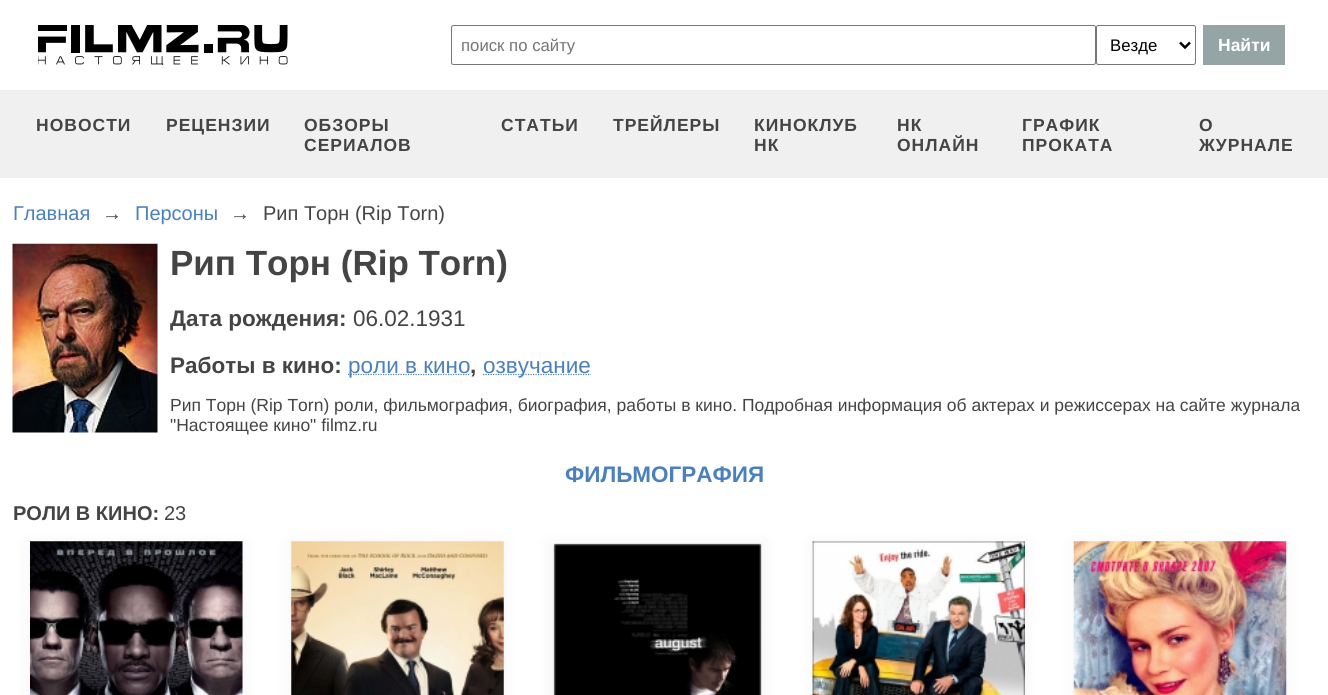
#include <cairo/cairo.h>
#include <math.h>
#include <stddef.h>

typedef struct { double x, y; const char *s; } line_t;
typedef struct { double x, y, w, h; unsigned color; } box_t;
static cairo_t *cr;

static void rgb(unsigned color)
{
	cairo_set_source_rgb(cr, (color >> 16) / 255.0, (color >> 8 & 255) / 255.0, (color & 255) / 255.0);
}

static void tracked(double x, double y, const char *s, double letter, double word)
{
	cairo_move_to(cr, x, y);
	while (*s) {
		char ch[5] = {0};
		int n = 0;
		do ch[n++] = *s++; while ((*s & 0xC0) == 0x80);
		cairo_show_text(cr, ch);
		cairo_rel_move_to(cr, letter + word * (*ch == ' '), 0);
	}
}

static void rrect(double x, double y, double w, double h, double r)
{
	cairo_new_sub_path(cr);
	cairo_arc(cr, x + w - r, y + h - r, r, 0, M_PI / 2);
	cairo_arc(cr, x + r, y + h - r, r, M_PI / 2, M_PI);
	cairo_arc(cr, x + r, y + r, r, M_PI, 1.5 * M_PI);
	cairo_arc(cr, x + w - r, y + r, r, 1.5 * M_PI, 2 * M_PI);
	cairo_close_path(cr);
}

static void soft_shadow(double x, double y, double w, double h, double r, double blur, double alpha)
{
	cairo_push_group_with_content(cr, CAIRO_CONTENT_ALPHA);
	cairo_set_operator(cr, CAIRO_OPERATOR_SOURCE);
	for (int i = 15; i >= -15 && fmin(w, h) + blur * i / 3 > 0; i -= 2) {
		double e = blur * i / 6;
		cairo_set_source_rgba(cr, 0, 0, 0, alpha * erfc((i - 1) / 8.5) / 2);
		rrect(x - e, y - e, w + 2 * e, h + 2 * e, fmax(0, fmin(r + e + blur * .6, fmin(w, h) / 2 + e)));
		cairo_fill(cr);
	}
	cairo_pattern_t *soft = cairo_pop_group(cr);
	cairo_mask(cr, soft);
	cairo_pattern_destroy(soft);
}

static void image(const char *path, double x, double y, double w, double h)
{
	cairo_surface_t *image = cairo_image_surface_create_from_png(path);
	cairo_save(cr);
	cairo_set_source_surface(cr, image, x, y);
	cairo_rectangle(cr, x, y, w, h);
	cairo_fill(cr);
	cairo_restore(cr);
	cairo_surface_destroy(image);
}

int main(void) {
	cairo_surface_t *surface = cairo_image_surface_create(CAIRO_FORMAT_RGB24, 1328, 695);
	cr = cairo_create(surface);
	cairo_font_options_t *options = cairo_font_options_create();
	cairo_font_options_set_hint_metrics(options, CAIRO_HINT_METRICS_OFF);
	cairo_font_options_set_hint_style(options, CAIRO_HINT_STYLE_NONE);
	cairo_set_font_options(cr, options);
	cairo_set_miter_limit(cr, 4);
	rgb(0xffffff);
	cairo_paint(cr);
	image("img/1.png", 38, 25, 250, 40);
	rrect(451.5, 25.5, 644, 39, 2);
	rgb(0x767676);
	cairo_set_line_width(cr, 1);
	cairo_stroke(cr);
	rrect(1096.5, 25.5, 99, 39, 2);
	cairo_stroke(cr);
	cairo_new_path(cr);
	cairo_move_to(cr, 1180, 42.5);
	cairo_line_to(cr, 1185, 47.5);
	cairo_line_to(cr, 1190, 42.5);
	rgb(0x000000);
	cairo_set_line_width(cr, 2.5);
	cairo_stroke(cr);
	{
		static const box_t items[] = {
			{1203, 26, 82, 39, 0x95a5a6},
			{1203, 25, 82, 1, 0x6fb0db},
			{0, 90, 1328, 88, 0xf0f0f0},
		};
		for (size_t i = 0; i < sizeof items / sizeof *items; i++) {
			rgb(items[i].color);
			cairo_rectangle(cr, items[i].x, items[i].y, items[i].w, items[i].h);
			cairo_fill(cr);
		}
	}
	image("img/2.png", 12, 243, 146, 190);
	cairo_new_path(cr);
	cairo_move_to(cr, 348, 374.5);
	cairo_line_to(cr, 470.5, 374.5);
	rgb(0x4a80be);
	cairo_set_line_width(cr, 1.2);
	cairo_set_dash(cr, (double[]){1.25, 1.25}, 2, 0);
	cairo_stroke(cr);
	cairo_new_path(cr);
	cairo_move_to(cr, 483, 374.5);
	cairo_line_to(cr, 591, 374.5);
	cairo_stroke(cr);
	rgb(0x000000);
	soft_shadow(30, 544, 213, 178, 0, 9, 0.05);
	image("img/3.png", 30, 541, 213, 154);
	soft_shadow(291, 544, 213, 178, 0, 9, 0.05);
	image("img/4.png", 291, 541, 213, 154);
	soft_shadow(551, 544, 213, 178, 0, 9, 0.05);
	image("img/5.png", 553, 543, 209, 152);
	soft_shadow(813, 544, 212, 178, 0, 9, 0.05);
	image("img/6.png", 812, 541, 213, 154);
	soft_shadow(1074, 544, 212, 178, 0, 9, 0.05);
	image("img/7.png", 1073, 541, 214, 154);
	cairo_select_font_face(cr, "Liberation Sans", CAIRO_FONT_SLANT_NORMAL, CAIRO_FONT_WEIGHT_NORMAL);
	cairo_set_font_size(cr, 16.75);
	rgb(0x757575);
	cairo_move_to(cr, 461, 51);
	cairo_show_text(cr, "поиск по сайту");
	rgb(0x000000);
	cairo_move_to(cr, 1110, 51);
	cairo_show_text(cr, "Везде");
	cairo_select_font_face(cr, "Liberation Sans", CAIRO_FONT_SLANT_NORMAL, CAIRO_FONT_WEIGHT_BOLD);
	cairo_set_font_size(cr, 17.5);
	rgb(0xffffff);
	cairo_move_to(cr, 1218, 51);
	cairo_show_text(cr, "Найти");
	rgb(0x444444);
	{
		static const line_t items[] = {
			{36, 131, "НОВОСТИ"},
			{166, 131, "РЕЦЕНЗИИ"},
			{304, 131, "ОБЗОРЫ"},
			{304, 151, "СЕРИАЛОВ"},
			{501, 131, "СТАТЬИ"},
			{613, 131, "ТРЕЙЛЕРЫ"},
			{754, 131, "КИНОКЛУБ"},
			{754, 151, "НК"},
			{897, 131, "НК"},
			{897, 151, "ОНЛАЙН"},
			{1022, 131, "ГРАФИК"},
			{1022, 151, "ПРОКАТА"},
			{1199, 131, "О"},
			{1199, 151, "ЖУРНАЛЕ"},
		};
		for (size_t i = 0; i < sizeof items / sizeof *items; i++) {
			tracked(items[i].x, items[i].y, items[i].s, 1, 0);
		}
	}
	cairo_select_font_face(cr, "Liberation Sans", CAIRO_FONT_SLANT_NORMAL, CAIRO_FONT_WEIGHT_NORMAL);
	cairo_set_font_size(cr, 20);
	rgb(0x4a80be);
	cairo_move_to(cr, 13, 220);
	cairo_show_text(cr, "Главная");
	rgb(0x444444);
	cairo_move_to(cr, 102, 220);
	cairo_show_text(cr, "→");
	rgb(0x4a80be);
	cairo_move_to(cr, 135, 220);
	cairo_show_text(cr, "Персоны");
	rgb(0x444444);
	cairo_move_to(cr, 230, 220);
	cairo_show_text(cr, "→");
	cairo_move_to(cr, 263, 220);
	cairo_show_text(cr, "Рип Торн (Rip Torn)");
	cairo_select_font_face(cr, "Liberation Sans", CAIRO_FONT_SLANT_NORMAL, CAIRO_FONT_WEIGHT_BOLD);
	cairo_set_font_size(cr, 35);
	cairo_move_to(cr, 170, 275);
	cairo_show_text(cr, "Рип Торн (Rip Torn)");
	cairo_set_font_size(cr, 22.5);
	cairo_move_to(cr, 170, 326);
	cairo_show_text(cr, "Дата рождения:");
	cairo_select_font_face(cr, "Liberation Sans", CAIRO_FONT_SLANT_NORMAL, CAIRO_FONT_WEIGHT_NORMAL);
	cairo_move_to(cr, 353, 326);
	cairo_show_text(cr, "06.02.1931");
	cairo_select_font_face(cr, "Liberation Sans", CAIRO_FONT_SLANT_NORMAL, CAIRO_FONT_WEIGHT_BOLD);
	cairo_move_to(cr, 170, 373);
	cairo_show_text(cr, "Работы в кино:");
	cairo_select_font_face(cr, "Liberation Sans", CAIRO_FONT_SLANT_NORMAL, CAIRO_FONT_WEIGHT_NORMAL);
	rgb(0x4a80be);
	cairo_move_to(cr, 348, 373);
	cairo_show_text(cr, "роли в кино");
	cairo_select_font_face(cr, "Liberation Sans", CAIRO_FONT_SLANT_NORMAL, CAIRO_FONT_WEIGHT_BOLD);
	rgb(0x444444);
	cairo_move_to(cr, 470, 373);
	cairo_show_text(cr, ",");
	cairo_select_font_face(cr, "Liberation Sans", CAIRO_FONT_SLANT_NORMAL, CAIRO_FONT_WEIGHT_NORMAL);
	rgb(0x4a80be);
	cairo_move_to(cr, 483, 373);
	cairo_show_text(cr, "озвучание");
	cairo_set_font_size(cr, 17.5);
	rgb(0x444444);
	cairo_move_to(cr, 170, 411);
	cairo_show_text(cr, "Рип Торн (Rip Torn) роли, фильмография, биография, работы в кино. Подробная информация об актерах и режиссерах на сайте журнала");
	cairo_move_to(cr, 170, 431);
	cairo_show_text(cr, "\"Настоящее кино\" filmz.ru");
	cairo_select_font_face(cr, "Liberation Sans", CAIRO_FONT_SLANT_NORMAL, CAIRO_FONT_WEIGHT_BOLD);
	cairo_set_font_size(cr, 22.5);
	rgb(0x4a80be);
	cairo_move_to(cr, 565, 482);
	cairo_show_text(cr, "ФИЛЬМОГРАФИЯ");
	cairo_set_font_size(cr, 20);
	rgb(0x444444);
	cairo_move_to(cr, 13, 520);
	cairo_show_text(cr, "РОЛИ В КИНО:");
	cairo_select_font_face(cr, "Liberation Sans", CAIRO_FONT_SLANT_NORMAL, CAIRO_FONT_WEIGHT_NORMAL);
	cairo_move_to(cr, 164, 520);
	cairo_show_text(cr, "23");
	cairo_surface_write_to_png(surface, "page.png");
	cairo_font_options_destroy(options);
	cairo_destroy(cr);
	cairo_surface_destroy(surface);
	return 0;
}
